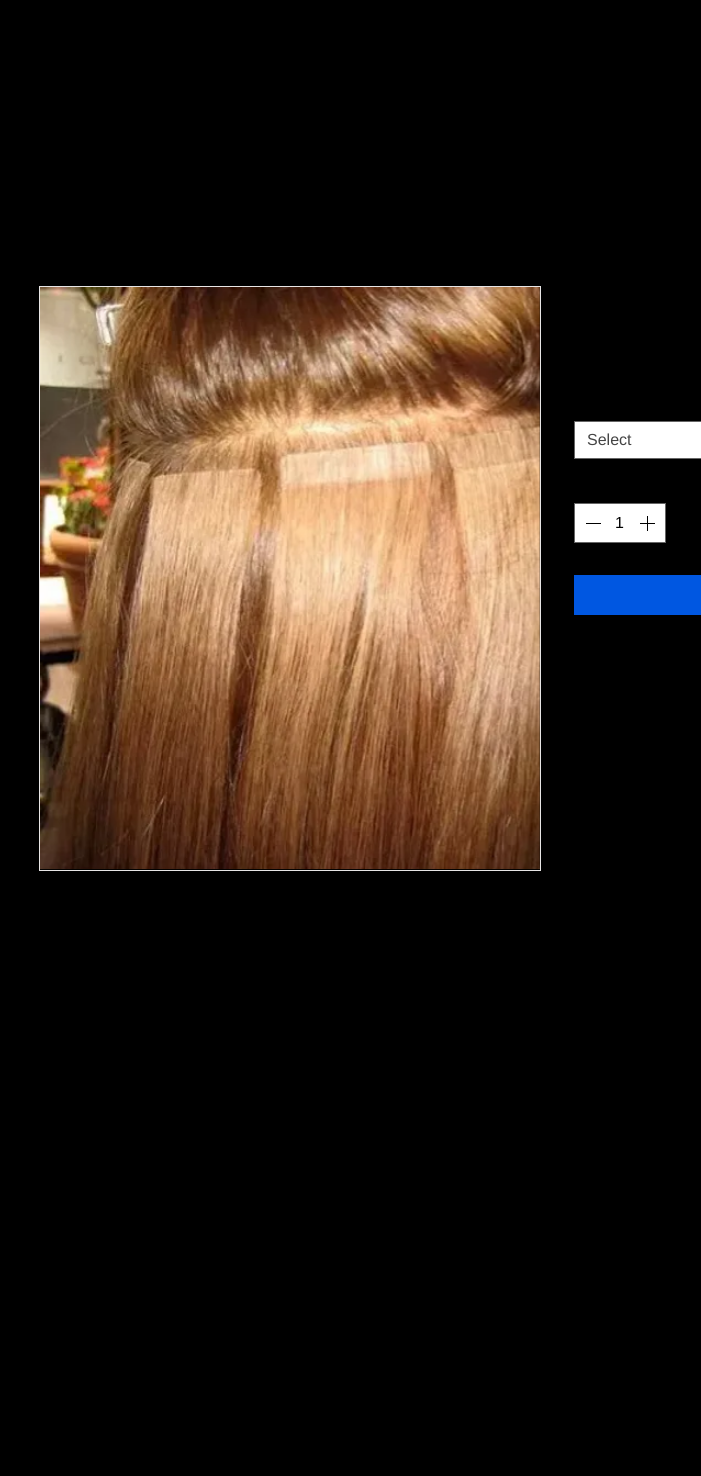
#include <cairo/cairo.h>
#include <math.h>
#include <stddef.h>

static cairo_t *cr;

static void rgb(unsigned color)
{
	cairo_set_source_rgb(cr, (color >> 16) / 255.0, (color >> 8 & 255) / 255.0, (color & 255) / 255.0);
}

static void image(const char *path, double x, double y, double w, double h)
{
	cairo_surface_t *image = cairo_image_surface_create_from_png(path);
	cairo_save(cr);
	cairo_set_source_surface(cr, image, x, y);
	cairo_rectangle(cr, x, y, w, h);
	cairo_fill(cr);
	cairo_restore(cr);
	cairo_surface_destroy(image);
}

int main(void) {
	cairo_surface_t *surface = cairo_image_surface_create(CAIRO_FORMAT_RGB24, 701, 1476);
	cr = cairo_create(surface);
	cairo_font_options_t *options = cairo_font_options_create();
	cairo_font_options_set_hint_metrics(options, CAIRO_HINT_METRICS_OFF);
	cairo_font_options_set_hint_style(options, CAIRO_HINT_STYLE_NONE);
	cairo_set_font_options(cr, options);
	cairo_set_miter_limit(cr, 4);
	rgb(0x000000);
	cairo_paint(cr);
	cairo_rectangle(cr, 39.5, 286.5, 501, 584);
	rgb(0xe8e6e6);
	cairo_set_line_width(cr, 1);
	cairo_stroke(cr);
	image("img/1.png", 40, 287, 500, 583);
	rgb(0xffffff);
	cairo_rectangle(cr, 574.5, 421.5, 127, 37);
	cairo_fill_preserve(cr);
	rgb(0x666666);
	cairo_stroke(cr);
	rgb(0xffffff);
	cairo_rectangle(cr, 574.5, 503.5, 91, 39);
	cairo_fill_preserve(cr);
	rgb(0x666666);
	cairo_stroke(cr);
	rgb(0x000000);
	cairo_rectangle(cr, 586, 523, 15, 1);
	cairo_fill(cr);
	image("img/2.png", 640, 516, 15, 15);
	rgb(0x0057e1);
	cairo_rectangle(cr, 574, 575, 127, 40);
	cairo_fill(cr);
	cairo_select_font_face(cr, "Liberation Sans", CAIRO_FONT_SLANT_NORMAL, CAIRO_FONT_WEIGHT_NORMAL);
	cairo_set_font_size(cr, 16);
	rgb(0x444444);
	cairo_move_to(cr, 587, 445);
	cairo_show_text(cr, "Select");
	rgb(0x000000);
	cairo_move_to(cr, 615, 528);
	cairo_show_text(cr, "1");
	cairo_surface_write_to_png(surface, "page.png");
	cairo_font_options_destroy(options);
	cairo_destroy(cr);
	cairo_surface_destroy(surface);
	return 0;
}
